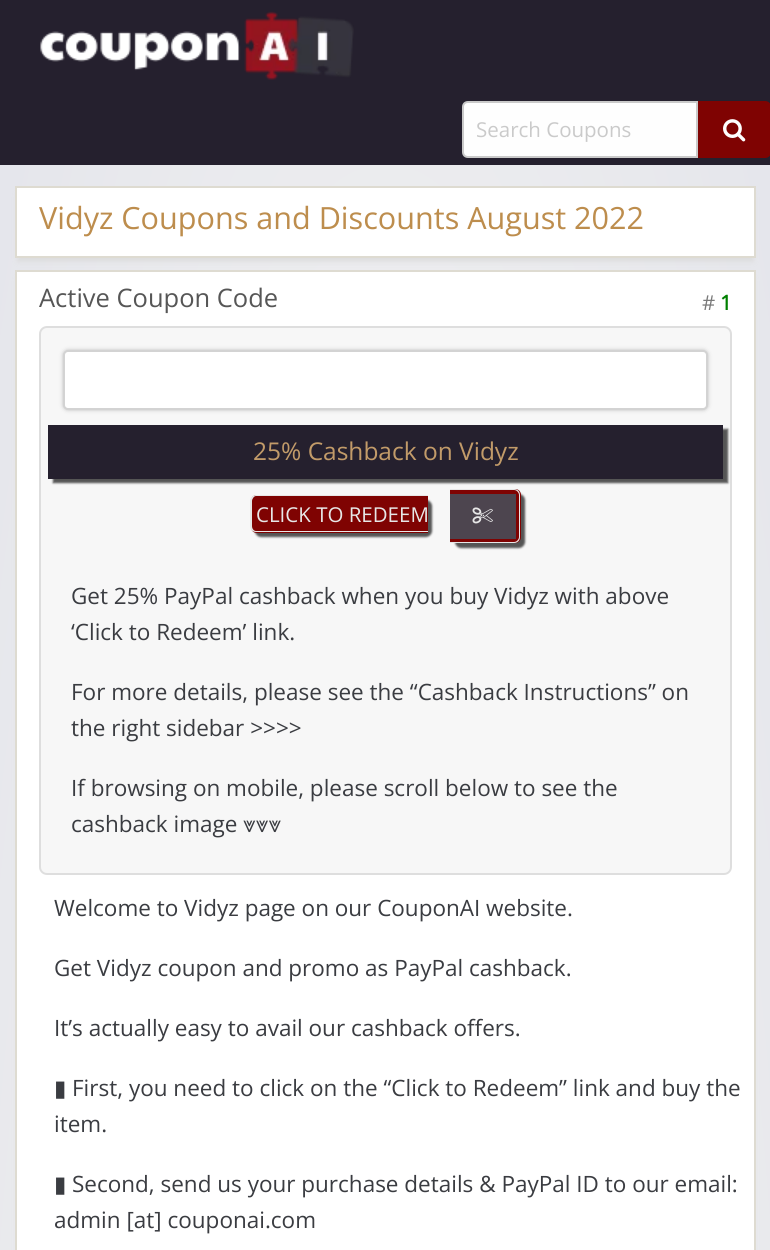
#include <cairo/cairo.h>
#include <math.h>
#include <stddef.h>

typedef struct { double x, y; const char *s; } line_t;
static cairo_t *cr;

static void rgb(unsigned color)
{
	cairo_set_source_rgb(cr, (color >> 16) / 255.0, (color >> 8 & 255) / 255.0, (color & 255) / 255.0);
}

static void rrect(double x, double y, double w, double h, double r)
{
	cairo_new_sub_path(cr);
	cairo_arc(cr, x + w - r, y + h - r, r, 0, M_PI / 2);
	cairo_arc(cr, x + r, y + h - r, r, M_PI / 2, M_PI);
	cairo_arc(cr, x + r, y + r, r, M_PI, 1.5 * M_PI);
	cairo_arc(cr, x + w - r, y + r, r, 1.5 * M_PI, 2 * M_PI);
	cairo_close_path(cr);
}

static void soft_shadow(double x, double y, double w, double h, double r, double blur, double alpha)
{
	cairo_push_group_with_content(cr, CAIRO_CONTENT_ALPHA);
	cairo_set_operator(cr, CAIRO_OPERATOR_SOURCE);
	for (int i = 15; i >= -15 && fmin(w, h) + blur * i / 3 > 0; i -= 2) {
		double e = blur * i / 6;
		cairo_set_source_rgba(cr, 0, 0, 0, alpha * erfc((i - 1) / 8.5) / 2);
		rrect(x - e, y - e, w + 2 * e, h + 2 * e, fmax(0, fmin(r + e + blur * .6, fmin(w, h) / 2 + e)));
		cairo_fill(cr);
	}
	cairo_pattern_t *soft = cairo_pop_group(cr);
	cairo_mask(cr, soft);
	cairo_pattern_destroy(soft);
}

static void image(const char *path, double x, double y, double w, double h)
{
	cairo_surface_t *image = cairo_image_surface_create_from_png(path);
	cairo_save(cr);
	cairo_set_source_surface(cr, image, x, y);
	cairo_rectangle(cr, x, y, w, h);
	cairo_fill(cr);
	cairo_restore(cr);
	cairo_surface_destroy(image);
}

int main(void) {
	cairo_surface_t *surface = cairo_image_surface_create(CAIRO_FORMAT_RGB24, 770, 1250);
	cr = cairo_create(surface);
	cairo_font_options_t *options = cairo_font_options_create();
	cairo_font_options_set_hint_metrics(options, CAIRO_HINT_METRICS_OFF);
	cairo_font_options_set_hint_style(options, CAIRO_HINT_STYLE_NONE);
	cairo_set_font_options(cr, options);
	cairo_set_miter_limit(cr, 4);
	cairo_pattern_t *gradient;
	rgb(0xffffff);
	cairo_paint(cr);
	gradient = cairo_pattern_create_radial(0, 0, 0, 0, 0, 1);
	cairo_pattern_set_matrix(gradient, &(cairo_matrix_t){1.0 / 545, 0, 0, 1.0 / 2822, -1.0 * 386 / 545, -1.0 * 1995 / 2822});
	cairo_pattern_add_color_stop_rgba(gradient, 0.35, 0.945, 0.945, 0.945, 1);
	cairo_pattern_add_color_stop_rgba(gradient, 1, 0.894, 0.898, 0.922, 1);
	cairo_set_source(cr, gradient);
	cairo_pattern_destroy(gradient);
	cairo_rectangle(cr, 0, 165, 770, 1085);
	cairo_fill(cr);
	rgb(0x25202e);
	cairo_rectangle(cr, 0, 0, 770, 165);
	cairo_fill(cr);
	image("img/1.png", 40, 11, 314, 69);
	rgb(0xfefefe);
	cairo_new_path(cr);
	cairo_move_to(cr, 468, 102);
	cairo_line_to(cr, 697, 102);
	cairo_line_to(cr, 697, 157);
	cairo_line_to(cr, 468, 157);
	cairo_curve_to(cr, 465, 157, 463, 155, 463, 152);
	cairo_line_to(cr, 463, 107);
	cairo_curve_to(cr, 463, 104, 465, 102, 468, 102);
	cairo_close_path(cr);
	cairo_fill_preserve(cr);
	rgb(0xcacaca);
	cairo_stroke(cr);
	rgb(0x7f0302);
	cairo_new_path(cr);
	cairo_move_to(cr, 698, 101);
	cairo_line_to(cr, 765, 101);
	cairo_curve_to(cr, 768.5, 101, 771, 103.5, 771, 107);
	cairo_line_to(cr, 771, 152);
	cairo_curve_to(cr, 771, 155.5, 768.5, 158, 765, 158);
	cairo_line_to(cr, 698, 158);
	cairo_close_path(cr);
	cairo_fill(cr);
	image("img/2.png", 723, 119, 23, 23);
	rgb(0xdbdbdb);
	soft_shadow(18, 195, 735, 66, 0, 3, 1);
	rgb(0xffffff);
	cairo_rectangle(cr, 16, 187, 739, 70);
	cairo_fill_preserve(cr);
	rgb(0xdedbd1);
	cairo_stroke(cr);
	rgb(0xdbdbdb);
	soft_shadow(18, 279, 735, 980, 0, 3, 1);
	rgb(0xffffff);
	cairo_rectangle(cr, 16, 271, 739, 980);
	cairo_fill_preserve(cr);
	rgb(0xdedbd1);
	cairo_stroke(cr);
	rgb(0xf7f7f7);
	rrect(40, 327, 691, 547, 7);
	cairo_fill_preserve(cr);
	rgb(0xdedede);
	cairo_stroke(cr);
	rgb(0xbdbdbd);
	soft_shadow(63, 350, 645, 60, 5, 2, 1);
	rgb(0xffffff);
	rrect(64, 351, 643, 58, 4);
	cairo_fill_preserve(cr);
	rgb(0xd3d3d3);
	cairo_stroke(cr);
	rgb(0x555555);
	soft_shadow(53, 429, 675, 54, 0, 1, 1);
	rgb(0x25202e);
	cairo_rectangle(cr, 48, 425, 675, 54);
	cairo_fill(cr);
	rgb(0x555555);
	soft_shadow(255, 500, 177, 37, 6, 1, 1);
	rgb(0x7f0302);
	cairo_new_path(cr);
	cairo_move_to(cr, 257, 495);
	cairo_line_to(cr, 428, 495);
	cairo_line_to(cr, 428, 533);
	cairo_line_to(cr, 257, 533);
	cairo_curve_to(cr, 253.5, 533, 251, 530.5, 251, 527);
	cairo_line_to(cr, 251, 501);
	cairo_curve_to(cr, 251, 497.5, 253.5, 495, 257, 495);
	cairo_close_path(cr);
	cairo_fill(cr);
	rgb(0xe7e7e7);
	cairo_set_fill_rule(cr, CAIRO_FILL_RULE_EVEN_ODD);
	cairo_new_path(cr);
	cairo_move_to(cr, 256, 495);
	cairo_line_to(cr, 428, 495);
	cairo_line_to(cr, 428, 532);
	cairo_line_to(cr, 256, 532);
	cairo_curve_to(cr, 253, 532, 250, 530, 250, 526);
	cairo_line_to(cr, 250, 501);
	cairo_curve_to(cr, 250, 498, 253, 495, 256, 495);
	cairo_close_path(cr);
	cairo_move_to(cr, 256, 496);
	cairo_line_to(cr, 428, 496);
	cairo_line_to(cr, 428, 531);
	cairo_line_to(cr, 256, 531);
	cairo_curve_to(cr, 254, 531, 252, 529, 252, 526);
	cairo_line_to(cr, 252, 501);
	cairo_curve_to(cr, 252, 499, 254, 496, 256, 496);
	cairo_close_path(cr);
	cairo_fill(cr);
	rgb(0x555555);
	soft_shadow(455, 494, 70, 54, 6, 1, 1);
	rgb(0x7f0302);
	cairo_new_path(cr);
	cairo_move_to(cr, 450, 489);
	cairo_line_to(cr, 515, 489);
	cairo_curve_to(cr, 518.5, 489, 521, 491.5, 521, 495);
	cairo_line_to(cr, 521, 537);
	cairo_curve_to(cr, 521, 540.5, 518.5, 543, 515, 543);
	cairo_line_to(cr, 450, 543);
	cairo_close_path(cr);
	cairo_fill(cr);
	rgb(0xe7e7e7);
	cairo_new_path(cr);
	cairo_move_to(cr, 450, 489);
	cairo_line_to(cr, 514, 489);
	cairo_curve_to(cr, 518, 489, 520, 492, 520, 495);
	cairo_line_to(cr, 520, 537);
	cairo_curve_to(cr, 520, 540, 518, 543, 514, 543);
	cairo_line_to(cr, 450, 543);
	cairo_close_path(cr);
	cairo_move_to(cr, 450, 490);
	cairo_line_to(cr, 514, 490);
	cairo_curve_to(cr, 517, 490, 519, 493, 519, 495);
	cairo_line_to(cr, 519, 537);
	cairo_curve_to(cr, 519, 539, 517, 542, 514, 542);
	cairo_line_to(cr, 450, 542);
	cairo_close_path(cr);
	cairo_fill(cr);
	rgb(0x4d454f);
	cairo_rectangle(cr, 450, 494, 66, 45);
	cairo_fill(cr);
	image("img/3.png", 472, 507, 21, 17);
	cairo_select_font_face(cr, "Open Sans", CAIRO_FONT_SLANT_NORMAL, CAIRO_FONT_WEIGHT_NORMAL);
	cairo_set_font_size(cr, 20.5);
	rgb(0xcacaca);
	cairo_move_to(cr, 476, 137);
	cairo_show_text(cr, "Search Coupons");
	cairo_set_font_size(cr, 30.6);
	rgb(0xbd8d4d);
	cairo_move_to(cr, 39, 229);
	cairo_show_text(cr, "Vidyz Coupons and Discounts August 2022");
	cairo_set_font_size(cr, 25.5);
	rgb(0x565656);
	cairo_move_to(cr, 39, 307);
	cairo_show_text(cr, "Active Coupon Code");
	cairo_set_font_size(cr, 20.5);
	rgb(0x7a7a7a);
	cairo_move_to(cr, 702, 310);
	cairo_show_text(cr, "#");
	cairo_select_font_face(cr, "Open Sans", CAIRO_FONT_SLANT_NORMAL, CAIRO_FONT_WEIGHT_BOLD);
	rgb(0x008000);
	cairo_move_to(cr, 720, 310);
	cairo_show_text(cr, "1");
	cairo_select_font_face(cr, "Open Sans", CAIRO_FONT_SLANT_NORMAL, CAIRO_FONT_WEIGHT_NORMAL);
	cairo_set_font_size(cr, 24.5);
	rgb(0xc29b69);
	cairo_move_to(cr, 253, 460);
	cairo_show_text(cr, "25% Cashback on Vidyz");
	cairo_set_font_size(cr, 20.5);
	rgb(0xe7e7e7);
	cairo_move_to(cr, 256, 522);
	cairo_show_text(cr, "CLICK TO REDEEM");
	cairo_set_font_size(cr, 22.5);
	rgb(0x3a3c41);
	{
		static const line_t items[] = {
			{71, 604, "Get 25% PayPal cashback when you buy Vidyz with above"},
			{71, 640, "‘Click to Redeem’ link."},
			{71, 700, "For more details, please see the “Cashback Instructions” on"},
			{71, 736, "the right sidebar >>>>"},
			{71, 796, "If browsing on mobile, please scroll below to see the"},
			{71, 832, "cashback image"},
		};
		for (size_t i = 0; i < sizeof items / sizeof *items; i++) {
			cairo_move_to(cr, items[i].x, items[i].y);
			cairo_show_text(cr, items[i].s);
		}
	}
	cairo_select_font_face(cr, "FreeSerif", CAIRO_FONT_SLANT_NORMAL, CAIRO_FONT_WEIGHT_NORMAL);
	cairo_move_to(cr, 243, 832);
	cairo_show_text(cr, "⩔⩔⩔");
	cairo_select_font_face(cr, "Open Sans", CAIRO_FONT_SLANT_NORMAL, CAIRO_FONT_WEIGHT_NORMAL);
	{
		static const line_t items[] = {
			{54, 916, "Welcome to Vidyz page on our CouponAI website."},
			{54, 976, "Get Vidyz coupon and promo as PayPal cashback."},
			{54, 1036, "It’s actually easy to avail our cashback offers."},
		};
		for (size_t i = 0; i < sizeof items / sizeof *items; i++) {
			cairo_move_to(cr, items[i].x, items[i].y);
			cairo_show_text(cr, items[i].s);
		}
	}
	cairo_select_font_face(cr, "DejaVu Sans", CAIRO_FONT_SLANT_NORMAL, CAIRO_FONT_WEIGHT_NORMAL);
	cairo_move_to(cr, 54, 1096);
	cairo_show_text(cr, "▮");
	cairo_select_font_face(cr, "Open Sans", CAIRO_FONT_SLANT_NORMAL, CAIRO_FONT_WEIGHT_NORMAL);
	cairo_move_to(cr, 72, 1096);
	cairo_show_text(cr, "First, you need to click on the “Click to Redeem” link and buy the");
	cairo_move_to(cr, 54, 1132);
	cairo_show_text(cr, "item.");
	cairo_select_font_face(cr, "DejaVu Sans", CAIRO_FONT_SLANT_NORMAL, CAIRO_FONT_WEIGHT_NORMAL);
	cairo_move_to(cr, 54, 1192);
	cairo_show_text(cr, "▮");
	cairo_select_font_face(cr, "Open Sans", CAIRO_FONT_SLANT_NORMAL, CAIRO_FONT_WEIGHT_NORMAL);
	cairo_move_to(cr, 72, 1192);
	cairo_show_text(cr, "Second, send us your purchase details & PayPal ID to our email:");
	cairo_move_to(cr, 54, 1228);
	cairo_show_text(cr, "admin [at] couponai.com");
	cairo_surface_write_to_png(surface, "page.png");
	cairo_font_options_destroy(options);
	cairo_destroy(cr);
	cairo_surface_destroy(surface);
	return 0;
}
